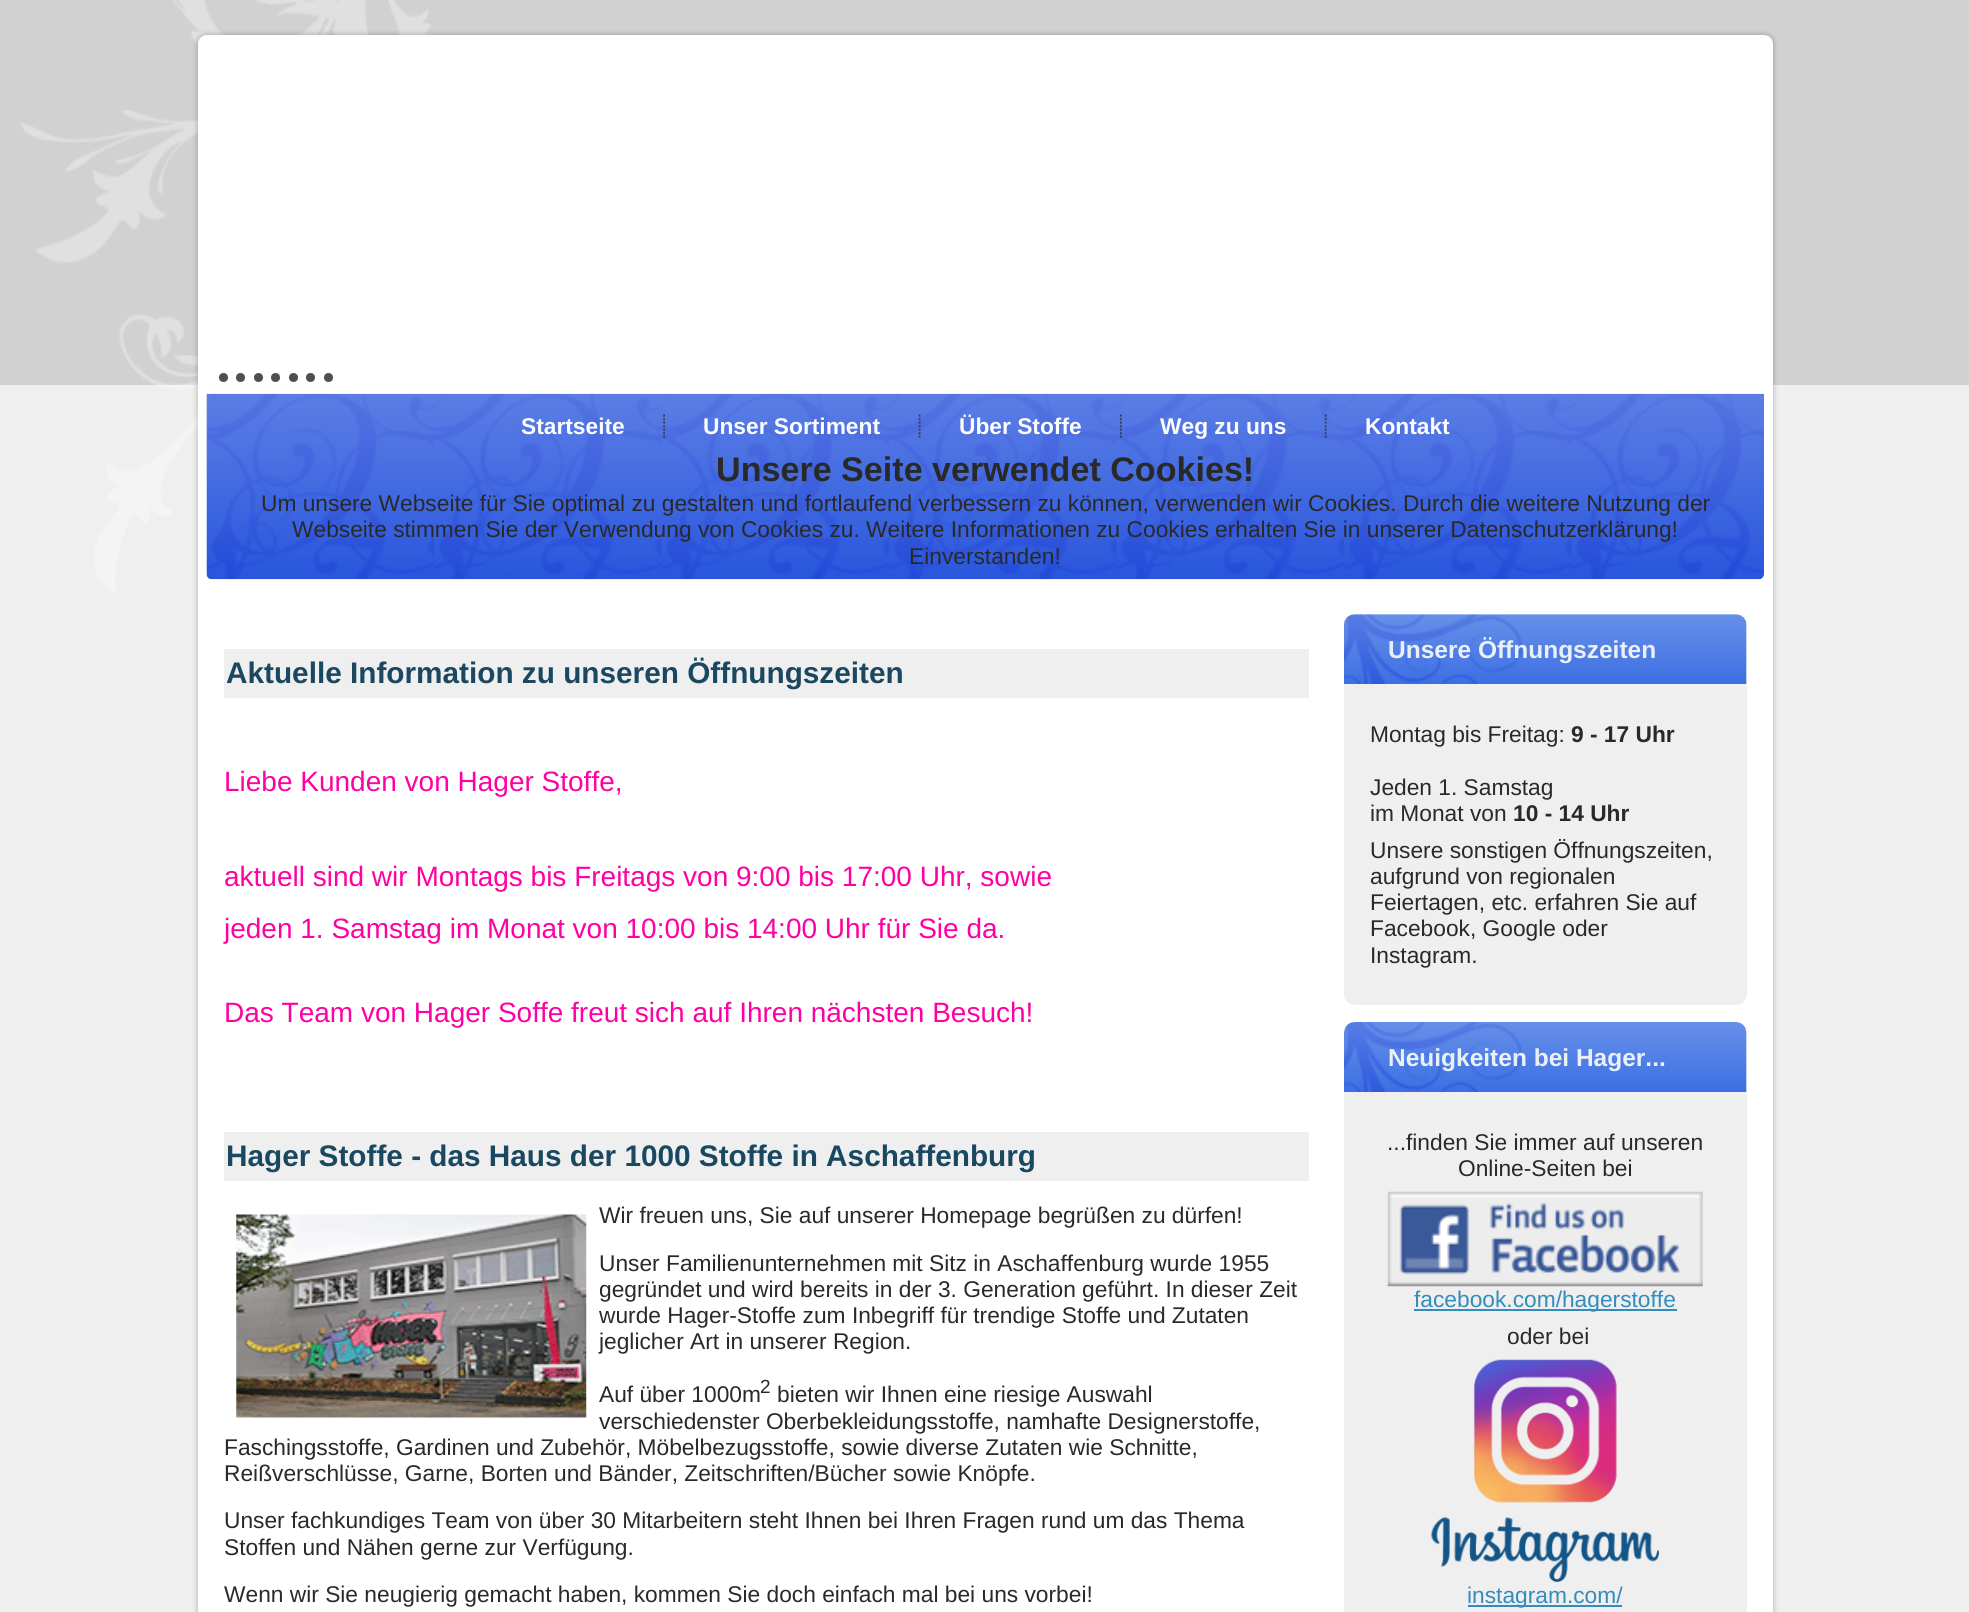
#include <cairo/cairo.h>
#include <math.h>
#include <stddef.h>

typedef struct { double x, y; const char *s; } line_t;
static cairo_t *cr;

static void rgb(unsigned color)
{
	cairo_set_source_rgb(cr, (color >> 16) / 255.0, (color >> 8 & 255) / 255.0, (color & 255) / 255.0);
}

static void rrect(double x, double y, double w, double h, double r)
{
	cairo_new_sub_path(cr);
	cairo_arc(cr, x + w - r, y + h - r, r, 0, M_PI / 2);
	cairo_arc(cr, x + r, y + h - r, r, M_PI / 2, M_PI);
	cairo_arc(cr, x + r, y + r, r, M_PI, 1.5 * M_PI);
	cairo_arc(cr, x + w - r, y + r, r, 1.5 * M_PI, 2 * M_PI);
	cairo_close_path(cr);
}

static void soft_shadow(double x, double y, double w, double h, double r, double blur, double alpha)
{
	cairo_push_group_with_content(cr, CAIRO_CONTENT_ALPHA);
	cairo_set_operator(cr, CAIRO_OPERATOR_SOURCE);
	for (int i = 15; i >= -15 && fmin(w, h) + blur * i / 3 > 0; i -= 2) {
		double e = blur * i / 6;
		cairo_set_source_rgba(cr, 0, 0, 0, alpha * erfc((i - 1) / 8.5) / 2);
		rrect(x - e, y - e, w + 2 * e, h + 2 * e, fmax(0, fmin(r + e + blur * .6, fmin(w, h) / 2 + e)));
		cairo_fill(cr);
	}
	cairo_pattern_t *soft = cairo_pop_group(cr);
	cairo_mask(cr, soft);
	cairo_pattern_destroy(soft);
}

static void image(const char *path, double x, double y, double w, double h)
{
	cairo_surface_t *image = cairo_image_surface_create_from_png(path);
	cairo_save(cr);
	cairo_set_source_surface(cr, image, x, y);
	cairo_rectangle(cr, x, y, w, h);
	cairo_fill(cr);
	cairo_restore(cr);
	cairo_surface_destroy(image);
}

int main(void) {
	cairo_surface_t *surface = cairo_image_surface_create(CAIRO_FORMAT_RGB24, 1969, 1612);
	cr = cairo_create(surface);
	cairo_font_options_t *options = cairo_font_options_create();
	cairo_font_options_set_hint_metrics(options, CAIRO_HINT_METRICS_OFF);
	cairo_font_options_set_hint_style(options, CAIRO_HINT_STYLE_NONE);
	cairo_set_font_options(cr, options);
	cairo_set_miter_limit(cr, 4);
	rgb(0xefefef);
	cairo_paint(cr);
	image("img/1.png", 0, 0, 1969, 595);
	rgb(0x000000);
	soft_shadow(196, 33, 1579, 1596, 11, 2, 0.15);
	rgb(0xffffff);
	rrect(202.5, 39.5, 1566, 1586, 4.5);
	cairo_fill_preserve(cr);
	cairo_set_line_width(cr, 9);
	cairo_stroke(cr);
	rgb(0x4f4f4f);
	cairo_arc(cr, 223.5, 377.5, 4.5, 0, 2 * M_PI);
	cairo_fill(cr);
	cairo_arc(cr, 240.5, 377.5, 4.5, 0, 2 * M_PI);
	cairo_fill(cr);
	cairo_arc(cr, 258.5, 377.5, 4.5, 0, 2 * M_PI);
	cairo_fill(cr);
	cairo_arc(cr, 275.5, 377.5, 4.5, 0, 2 * M_PI);
	cairo_fill(cr);
	cairo_arc(cr, 293.5, 377.5, 4.5, 0, 2 * M_PI);
	cairo_fill(cr);
	cairo_arc(cr, 310.5, 377.5, 4.5, 0, 2 * M_PI);
	cairo_fill(cr);
	cairo_arc(cr, 328.5, 377.5, 4.5, 0, 2 * M_PI);
	cairo_fill(cr);
	image("img/2.png", 206, 393, 1558, 187);
	image("img/3.png", 663, 414, 2, 24);
	image("img/4.png", 918, 414, 3, 24);
	image("img/5.png", 1120, 414, 2, 24);
	image("img/6.png", 1324, 414, 3, 24);
	rgb(0xefefef);
	cairo_rectangle(cr, 224, 649, 1085, 49);
	cairo_fill(cr);
	cairo_rectangle(cr, 224, 1132, 1085, 49);
	cairo_fill(cr);
	image("img/7.png", 236, 1214, 351, 204);
	image("img/8.png", 1344, 614, 403, 70);
	cairo_new_path(cr);
	cairo_move_to(cr, 1344, 684);
	cairo_line_to(cr, 1747, 684);
	cairo_line_to(cr, 1747, 994);
	cairo_curve_to(cr, 1747, 1000, 1742, 1005, 1736, 1005);
	cairo_line_to(cr, 1355, 1005);
	cairo_curve_to(cr, 1349, 1005, 1344, 1000, 1344, 994);
	cairo_close_path(cr);
	cairo_fill(cr);
	image("img/9.png", 1344, 1022, 403, 70);
	cairo_rectangle(cr, 1344, 1092, 403, 520);
	cairo_fill(cr);
	image("img/10.png", 1387, 1191, 316, 96);
	rgb(0x328dbd);
	cairo_rectangle(cr, 1414, 1309, 263, 2);
	cairo_fill(cr);
	image("img/11.png", 1431, 1359, 228, 223);
	cairo_rectangle(cr, 1468, 1605, 154, 2);
	cairo_fill(cr);
	cairo_select_font_face(cr, "Liberation Sans", CAIRO_FONT_SLANT_NORMAL, CAIRO_FONT_WEIGHT_BOLD);
	cairo_set_font_size(cr, 22.75);
	rgb(0xfcfcfc);
	{
		static const line_t items[] = {
			{521, 434, "Startseite"},
			{703, 434, "Unser Sortiment"},
			{959, 434, "Über Stoffe"},
			{1160, 434, "Weg zu uns"},
			{1365, 434, "Kontakt"},
		};
		for (size_t i = 0; i < sizeof items / sizeof *items; i++) {
			cairo_move_to(cr, items[i].x, items[i].y);
			cairo_show_text(cr, items[i].s);
		}
	}
	cairo_set_font_size(cr, 34.1);
	rgb(0x292929);
	cairo_move_to(cr, 716, 481);
	cairo_show_text(cr, "Unsere Seite verwendet Cookies!");
	cairo_select_font_face(cr, "Liberation Sans", CAIRO_FONT_SLANT_NORMAL, CAIRO_FONT_WEIGHT_NORMAL);
	cairo_set_font_size(cr, 22.75);
	{
		static const line_t items[] = {
			{261, 511, "Um unsere Webseite für Sie optimal zu gestalten und fortlaufend verbessern zu können, verwenden wir Cookies. Durch die weitere Nutzung der"},
			{292, 537, "Webseite stimmen Sie der Verwendung von Cookies zu. Weitere Informationen zu Cookies erhalten Sie in unserer Datenschutzerklärung!"},
			{909, 564, "Einverstanden!"},
		};
		for (size_t i = 0; i < sizeof items / sizeof *items; i++) {
			cairo_move_to(cr, items[i].x, items[i].y);
			cairo_show_text(cr, items[i].s);
		}
	}
	cairo_select_font_face(cr, "Liberation Sans", CAIRO_FONT_SLANT_NORMAL, CAIRO_FONT_WEIGHT_BOLD);
	cairo_set_font_size(cr, 29.75);
	rgb(0x1a4861);
	cairo_move_to(cr, 226, 683);
	cairo_show_text(cr, "Aktuelle Information zu unseren Öffnungszeiten");
	cairo_select_font_face(cr, "Liberation Sans", CAIRO_FONT_SLANT_NORMAL, CAIRO_FONT_WEIGHT_NORMAL);
	cairo_set_font_size(cr, 28);
	rgb(0xff00a3);
	{
		static const line_t items[] = {
			{224, 791, "Liebe Kunden von Hager Stoffe,"},
			{224, 886, "aktuell sind wir Montags bis Freitags von 9:00 bis 17:00 Uhr, sowie"},
			{224, 938, "jeden 1. Samstag im Monat von 10:00 bis 14:00 Uhr für Sie da."},
			{224, 1022, "Das Team von Hager Soffe freut sich auf Ihren nächsten Besuch!"},
		};
		for (size_t i = 0; i < sizeof items / sizeof *items; i++) {
			cairo_move_to(cr, items[i].x, items[i].y);
			cairo_show_text(cr, items[i].s);
		}
	}
	cairo_select_font_face(cr, "Liberation Sans", CAIRO_FONT_SLANT_NORMAL, CAIRO_FONT_WEIGHT_BOLD);
	cairo_set_font_size(cr, 29.75);
	rgb(0x1a4861);
	cairo_move_to(cr, 226, 1166);
	cairo_show_text(cr, "Hager Stoffe - das Haus der 1000 Stoffe in Aschaffenburg");
	cairo_select_font_face(cr, "Liberation Sans", CAIRO_FONT_SLANT_NORMAL, CAIRO_FONT_WEIGHT_NORMAL);
	cairo_set_font_size(cr, 22.75);
	rgb(0x292929);
	{
		static const line_t items[] = {
			{599, 1223, "Wir freuen uns, Sie auf unserer Homepage begrüßen zu dürfen!"},
			{599, 1271, "Unser Familienunternehmen mit Sitz in Aschaffenburg wurde 1955"},
			{599, 1297, "gegründet und wird bereits in der 3. Generation geführt. In dieser Zeit"},
			{599, 1323, "wurde Hager-Stoffe zum Inbegriff für trendige Stoffe und Zutaten"},
			{599, 1349, "jeglicher Art in unserer Region."},
			{599, 1402, "Auf über 1000m"},
		};
		for (size_t i = 0; i < sizeof items / sizeof *items; i++) {
			cairo_move_to(cr, items[i].x, items[i].y);
			cairo_show_text(cr, items[i].s);
		}
	}
	cairo_set_font_size(cr, 19);
	cairo_move_to(cr, 760, 1393);
	cairo_show_text(cr, "2");
	cairo_set_font_size(cr, 22.75);
	{
		static const line_t items[] = {
			{777, 1402, "bieten wir Ihnen eine riesige Auswahl"},
			{599, 1429, "verschiedenster Oberbekleidungsstoffe, namhafte Designerstoffe,"},
			{224, 1455, "Faschingsstoffe, Gardinen und Zubehör, Möbelbezugsstoffe, sowie diverse Zutaten wie Schnitte,"},
			{224, 1481, "Reißverschlüsse, Garne, Borten und Bänder, Zeitschriften/Bücher sowie Knöpfe."},
			{224, 1528, "Unser fachkundiges Team von über 30 Mitarbeitern steht Ihnen bei Ihren Fragen rund um das Thema"},
			{224, 1555, "Stoffen und Nähen gerne zur Verfügung."},
			{224, 1602, "Wenn wir Sie neugierig gemacht haben, kommen Sie doch einfach mal bei uns vorbei!"},
		};
		for (size_t i = 0; i < sizeof items / sizeof *items; i++) {
			cairo_move_to(cr, items[i].x, items[i].y);
			cairo_show_text(cr, items[i].s);
		}
	}
	cairo_select_font_face(cr, "Liberation Sans", CAIRO_FONT_SLANT_NORMAL, CAIRO_FONT_WEIGHT_BOLD);
	cairo_set_font_size(cr, 24.5);
	rgb(0xeaf1f6);
	cairo_move_to(cr, 1388, 658);
	cairo_show_text(cr, "Unsere Öffnungszeiten");
	cairo_select_font_face(cr, "Liberation Sans", CAIRO_FONT_SLANT_NORMAL, CAIRO_FONT_WEIGHT_NORMAL);
	cairo_set_font_size(cr, 22.75);
	rgb(0x292929);
	cairo_move_to(cr, 1370, 742);
	cairo_show_text(cr, "Montag bis Freitag:");
	cairo_select_font_face(cr, "Liberation Sans", CAIRO_FONT_SLANT_NORMAL, CAIRO_FONT_WEIGHT_BOLD);
	cairo_move_to(cr, 1571, 742);
	cairo_show_text(cr, "9 - 17 Uhr");
	cairo_select_font_face(cr, "Liberation Sans", CAIRO_FONT_SLANT_NORMAL, CAIRO_FONT_WEIGHT_NORMAL);
	cairo_move_to(cr, 1370, 795);
	cairo_show_text(cr, "Jeden 1. Samstag");
	cairo_move_to(cr, 1370, 821);
	cairo_show_text(cr, "im Monat von");
	cairo_select_font_face(cr, "Liberation Sans", CAIRO_FONT_SLANT_NORMAL, CAIRO_FONT_WEIGHT_BOLD);
	cairo_move_to(cr, 1513, 821);
	cairo_show_text(cr, "10 - 14 Uhr");
	cairo_select_font_face(cr, "Liberation Sans", CAIRO_FONT_SLANT_NORMAL, CAIRO_FONT_WEIGHT_NORMAL);
	{
		static const line_t items[] = {
			{1370, 858, "Unsere sonstigen Öffnungszeiten,"},
			{1370, 884, "aufgrund von regionalen"},
			{1370, 910, "Feiertagen, etc. erfahren Sie auf"},
			{1370, 936, "Facebook, Google oder"},
			{1370, 963, "Instagram."},
		};
		for (size_t i = 0; i < sizeof items / sizeof *items; i++) {
			cairo_move_to(cr, items[i].x, items[i].y);
			cairo_show_text(cr, items[i].s);
		}
	}
	cairo_select_font_face(cr, "Liberation Sans", CAIRO_FONT_SLANT_NORMAL, CAIRO_FONT_WEIGHT_BOLD);
	cairo_set_font_size(cr, 24.5);
	rgb(0xeaf1f6);
	cairo_move_to(cr, 1388, 1066);
	cairo_show_text(cr, "Neuigkeiten bei Hager...");
	cairo_select_font_face(cr, "Liberation Sans", CAIRO_FONT_SLANT_NORMAL, CAIRO_FONT_WEIGHT_NORMAL);
	cairo_set_font_size(cr, 22.75);
	rgb(0x292929);
	cairo_move_to(cr, 1387, 1150);
	cairo_show_text(cr, "...finden Sie immer auf unseren");
	cairo_move_to(cr, 1458, 1176);
	cairo_show_text(cr, "Online-Seiten bei");
	rgb(0x328dbd);
	cairo_move_to(cr, 1414, 1307);
	cairo_show_text(cr, "facebook.com/hagerstoffe");
	rgb(0x292929);
	cairo_move_to(cr, 1507, 1344);
	cairo_show_text(cr, "oder bei");
	rgb(0x328dbd);
	cairo_move_to(cr, 1467, 1603);
	cairo_show_text(cr, "instagram.com/");
	cairo_surface_write_to_png(surface, "page.png");
	cairo_font_options_destroy(options);
	cairo_destroy(cr);
	cairo_surface_destroy(surface);
	return 0;
}
